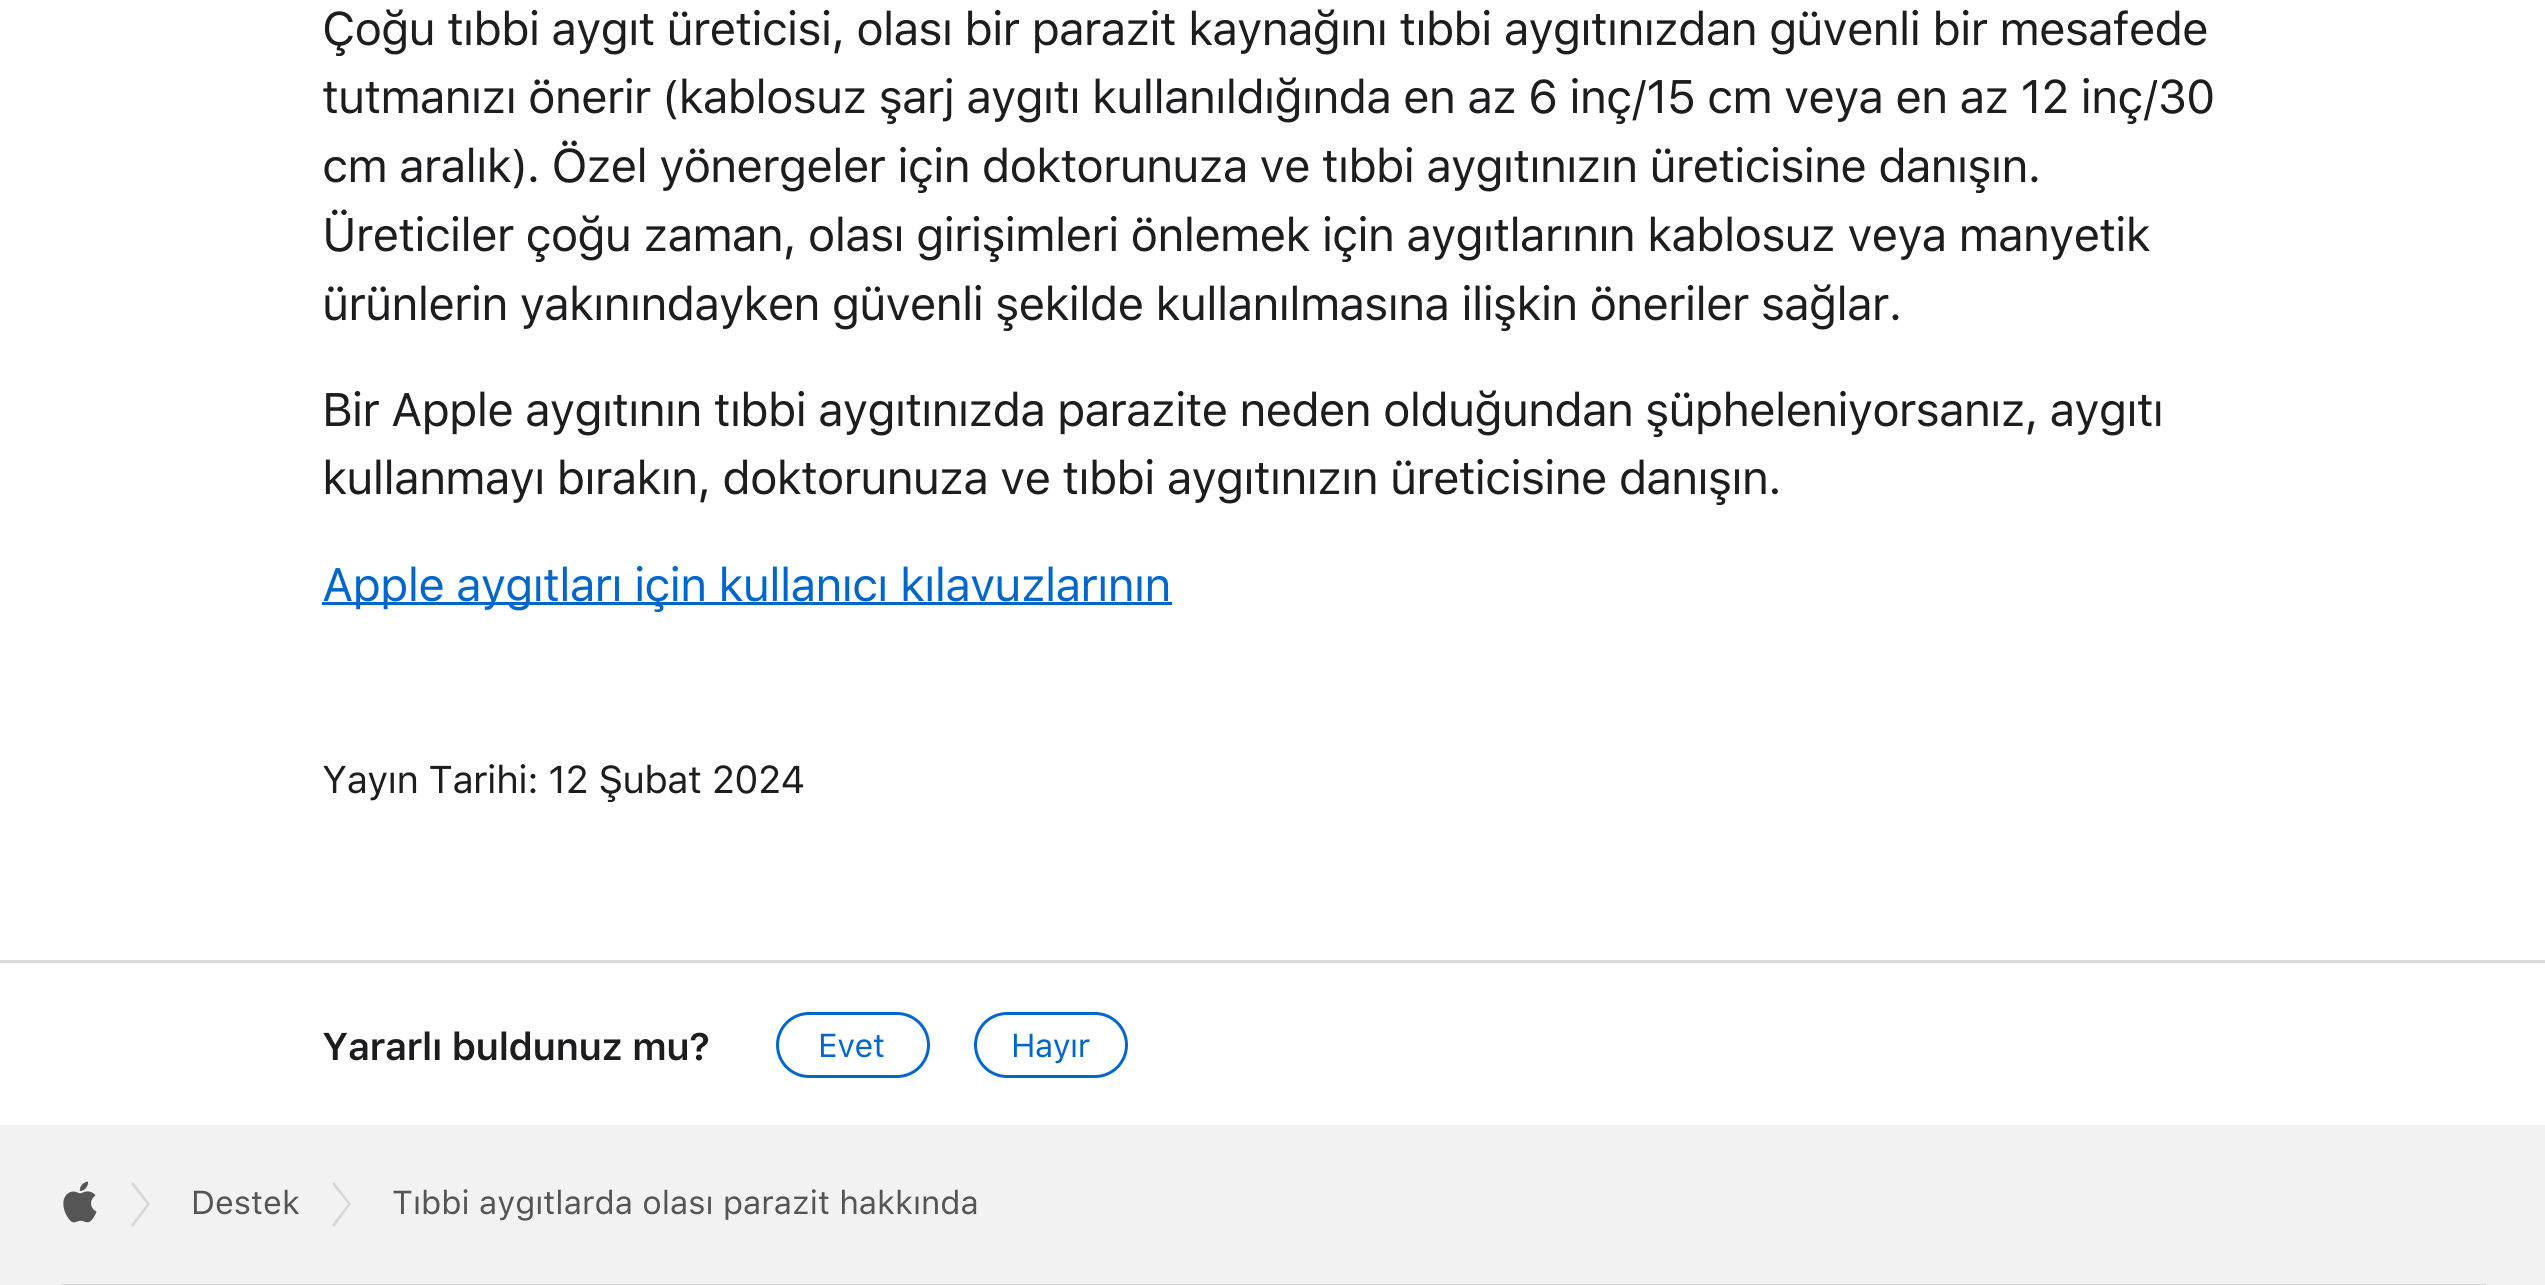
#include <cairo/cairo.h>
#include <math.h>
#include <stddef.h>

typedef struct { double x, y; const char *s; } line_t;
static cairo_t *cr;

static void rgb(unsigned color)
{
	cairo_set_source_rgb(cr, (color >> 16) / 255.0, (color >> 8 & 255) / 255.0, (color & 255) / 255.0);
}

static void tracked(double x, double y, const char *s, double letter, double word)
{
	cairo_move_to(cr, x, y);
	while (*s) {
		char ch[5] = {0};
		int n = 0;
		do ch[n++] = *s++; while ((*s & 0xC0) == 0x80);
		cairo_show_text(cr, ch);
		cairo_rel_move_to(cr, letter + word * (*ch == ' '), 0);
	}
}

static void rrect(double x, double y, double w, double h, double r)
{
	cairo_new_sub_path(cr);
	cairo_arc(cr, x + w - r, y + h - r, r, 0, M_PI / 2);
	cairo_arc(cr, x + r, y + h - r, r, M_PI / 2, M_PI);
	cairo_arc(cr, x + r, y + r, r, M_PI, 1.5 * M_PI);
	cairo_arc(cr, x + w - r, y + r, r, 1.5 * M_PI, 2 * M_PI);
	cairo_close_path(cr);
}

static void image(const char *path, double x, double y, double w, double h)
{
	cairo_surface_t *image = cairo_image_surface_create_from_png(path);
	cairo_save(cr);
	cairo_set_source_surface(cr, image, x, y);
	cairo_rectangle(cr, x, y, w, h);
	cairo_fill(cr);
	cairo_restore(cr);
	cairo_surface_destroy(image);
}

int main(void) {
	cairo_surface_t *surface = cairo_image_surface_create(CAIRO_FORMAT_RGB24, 2545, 1285);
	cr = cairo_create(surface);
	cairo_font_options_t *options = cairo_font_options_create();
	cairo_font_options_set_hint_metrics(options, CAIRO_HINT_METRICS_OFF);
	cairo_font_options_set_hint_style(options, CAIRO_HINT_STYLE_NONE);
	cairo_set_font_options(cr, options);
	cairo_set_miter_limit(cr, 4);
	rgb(0xffffff);
	cairo_paint(cr);
	rgb(0x0066cc);
	cairo_rectangle(cr, 322, 602, 850, 3);
	cairo_fill(cr);
	rgb(0xd9d9d9);
	cairo_rectangle(cr, 0, 960, 2545, 3);
	cairo_fill(cr);
	rrect(777.5, 1013.5, 151, 63, 31.5);
	rgb(0x0066cc);
	cairo_set_line_width(cr, 3);
	cairo_stroke(cr);
	rrect(975.5, 1013.5, 151, 63, 31.5);
	cairo_stroke(cr);
	rgb(0xf2f2f2);
	cairo_rectangle(cr, 0, 1125, 2545, 160);
	cairo_fill(cr);
	image("img/1.png", 63, 1181, 34, 42);
	rgb(0xd6d6d6);
	cairo_new_path(cr);
	cairo_move_to(cr, 133, 1182);
	cairo_line_to(cr, 150, 1204);
	cairo_line_to(cr, 133, 1227);
	cairo_line_to(cr, 131, 1225);
	cairo_line_to(cr, 147, 1204);
	cairo_line_to(cr, 131, 1184);
	cairo_close_path(cr);
	cairo_fill(cr);
	cairo_new_path(cr);
	cairo_move_to(cr, 334, 1182);
	cairo_line_to(cr, 351, 1204);
	cairo_line_to(cr, 334, 1227);
	cairo_line_to(cr, 332, 1225);
	cairo_line_to(cr, 348, 1204);
	cairo_line_to(cr, 332, 1184);
	cairo_close_path(cr);
	cairo_fill(cr);
	cairo_rectangle(cr, 61, 1284, 2425, 1);
	cairo_fill(cr);
	cairo_select_font_face(cr, "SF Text", CAIRO_FONT_SLANT_NORMAL, CAIRO_FONT_WEIGHT_NORMAL);
	cairo_set_font_size(cr, 46.75);
	rgb(0x1d1d1f);
	{
		static const line_t items[] = {
			{322, 45, "Çoğu tıbbi aygıt üreticisi, olası bir parazit kaynağını tıbbi aygıtınızdan güvenli bir mesafede"},
			{322, 113, "tutmanızı önerir (kablosuz şarj aygıtı kullanıldığında en az 6 inç/15 cm veya en az 12 inç/30"},
			{322, 182, "cm aralık). Özel yönergeler için doktorunuza ve tıbbi aygıtınızın üreticisine danışın."},
			{322, 251, "Üreticiler çoğu zaman, olası girişimleri önlemek için aygıtlarının kablosuz veya manyetik"},
			{322, 320, "ürünlerin yakınındayken güvenli şekilde kullanılmasına ilişkin öneriler sağlar."},
			{322, 426, "Bir Apple aygıtının tıbbi aygıtınızda parazite neden olduğundan şüpheleniyorsanız, aygıtı"},
			{322, 494, "kullanmayı bırakın, doktorunuza ve tıbbi aygıtınızın üreticisine danışın."},
		};
		for (size_t i = 0; i < sizeof items / sizeof *items; i++) {
			tracked(items[i].x, items[i].y, items[i].s, -1.03, 0);
		}
	}
	rgb(0x0066cc);
	tracked(322, 601, "Apple aygıtları için kullanıcı kılavuzlarının", -1.03, 0);
	cairo_set_font_size(cr, 38.5);
	rgb(0x1d1d1f);
	tracked(322, 793, "Yayın Tarihi: 12 Şubat 2024", -0.6, 0);
	cairo_select_font_face(cr, "SF Text SemiBold", CAIRO_FONT_SLANT_NORMAL, CAIRO_FONT_WEIGHT_NORMAL);
	tracked(322, 1060, "Yararlı buldunuz mu?", -0.6, 0);
	cairo_select_font_face(cr, "SF Text", CAIRO_FONT_SLANT_NORMAL, CAIRO_FONT_WEIGHT_NORMAL);
	cairo_set_font_size(cr, 33);
	rgb(0x0066cc);
	tracked(818, 1057, "Evet", -0.5, 0);
	tracked(1011, 1057, "Hayır", -0.5, 0);
	rgb(0x555555);
	cairo_move_to(cr, 191, 1214);
	cairo_show_text(cr, "Destek");
	cairo_move_to(cr, 392, 1214);
	cairo_show_text(cr, "Tıbbi aygıtlarda olası parazit hakkında");
	cairo_surface_write_to_png(surface, "page.png");
	cairo_font_options_destroy(options);
	cairo_destroy(cr);
	cairo_surface_destroy(surface);
	return 0;
}
